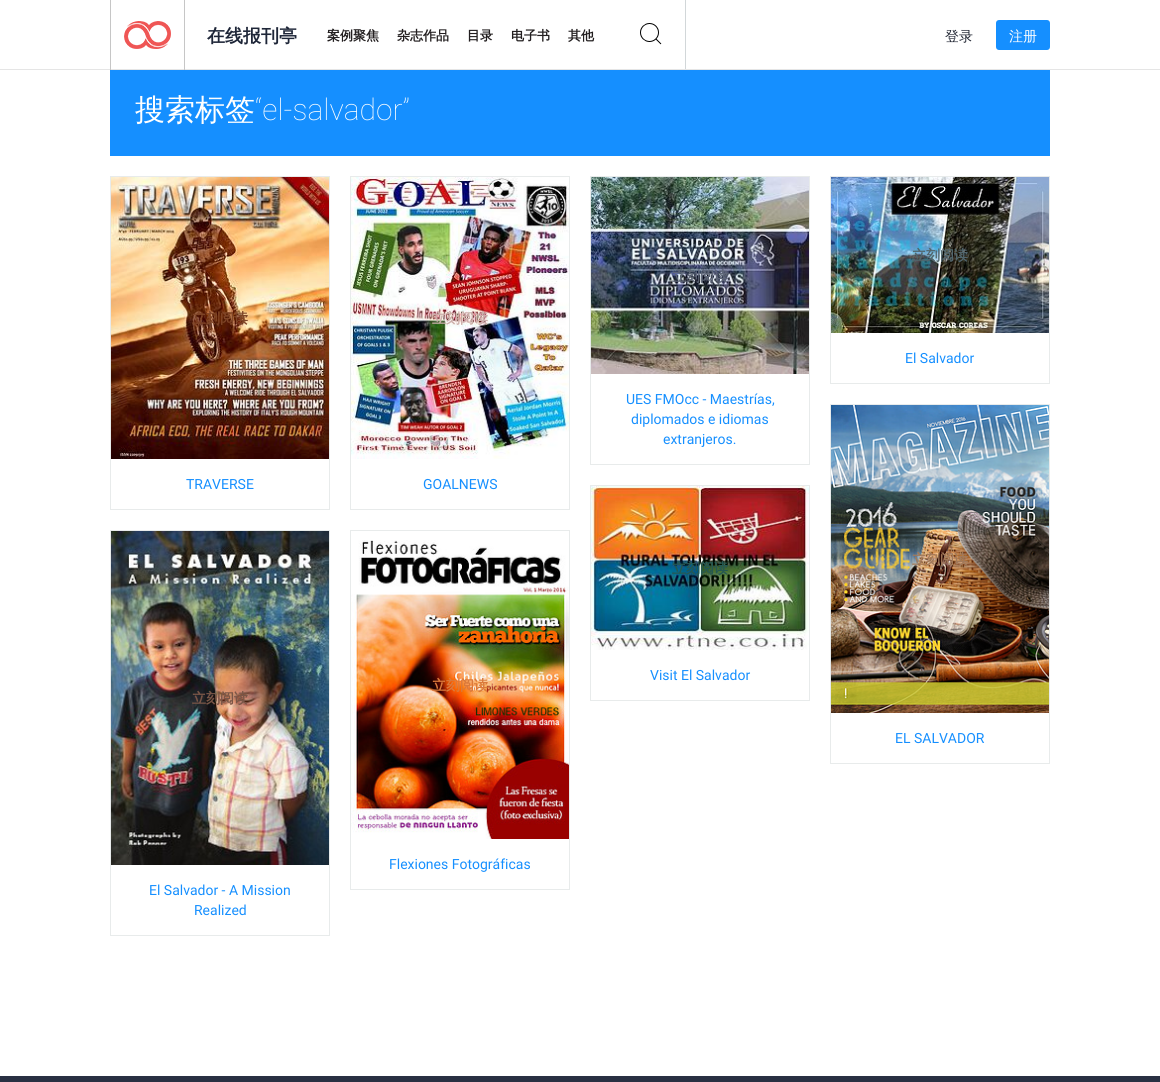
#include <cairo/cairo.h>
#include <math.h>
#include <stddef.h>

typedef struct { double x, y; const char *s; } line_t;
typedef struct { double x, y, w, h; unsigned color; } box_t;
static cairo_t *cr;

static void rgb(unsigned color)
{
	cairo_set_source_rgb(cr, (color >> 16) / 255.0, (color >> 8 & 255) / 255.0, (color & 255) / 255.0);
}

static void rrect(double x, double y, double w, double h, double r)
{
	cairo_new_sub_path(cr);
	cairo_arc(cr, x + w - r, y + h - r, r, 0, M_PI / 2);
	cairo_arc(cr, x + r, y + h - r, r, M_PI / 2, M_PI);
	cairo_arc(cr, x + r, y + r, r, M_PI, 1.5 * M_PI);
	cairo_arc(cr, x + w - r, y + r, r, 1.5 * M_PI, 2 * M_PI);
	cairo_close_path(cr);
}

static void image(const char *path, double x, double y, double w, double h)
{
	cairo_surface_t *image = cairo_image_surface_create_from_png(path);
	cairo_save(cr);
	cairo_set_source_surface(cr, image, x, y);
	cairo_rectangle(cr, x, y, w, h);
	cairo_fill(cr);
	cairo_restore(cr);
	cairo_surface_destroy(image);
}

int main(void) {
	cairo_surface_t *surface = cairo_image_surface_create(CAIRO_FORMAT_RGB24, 1160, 1082);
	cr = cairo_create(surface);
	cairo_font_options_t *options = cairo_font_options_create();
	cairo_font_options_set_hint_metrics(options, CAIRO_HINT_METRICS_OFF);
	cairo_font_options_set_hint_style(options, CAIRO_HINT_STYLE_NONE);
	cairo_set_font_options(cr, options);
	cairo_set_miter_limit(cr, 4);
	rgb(0xffffff);
	cairo_paint(cr);
	{
		static const box_t items[] = {
			{0, 69, 1160, 1, 0xe5e5e5},
			{184, 0, 1, 70, 0xc6c6c6},
			{110, 0, 1, 70, 0xc6c6c6},
		};
		for (size_t i = 0; i < sizeof items / sizeof *items; i++) {
			rgb(items[i].color);
			cairo_rectangle(cr, items[i].x, items[i].y, items[i].w, items[i].h);
			cairo_fill(cr);
		}
	}
	image("img/1.png", 124, 21, 47, 28);
	rgb(0xd2d7d9);
	cairo_rectangle(cr, 685, 0, 1, 69);
	cairo_fill(cr);
	image("img/2.png", 640, 23, 22, 22);
	rgb(0x158fff);
	rrect(996, 20, 54, 30, 3);
	cairo_fill(cr);
	cairo_rectangle(cr, 110, 70, 940, 86);
	cairo_fill(cr);
	cairo_rectangle(cr, 110.5, 176.5, 219, 333);
	rgb(0xe8ebeb);
	cairo_set_line_width(cr, 1);
	cairo_stroke(cr);
	image("img/3.png", 111, 177, 218, 282);
	cairo_rectangle(cr, 350.5, 176.5, 219, 333);
	cairo_stroke(cr);
	image("img/4.png", 351, 177, 218, 282);
	cairo_rectangle(cr, 590.5, 176.5, 219, 288);
	cairo_stroke(cr);
	image("img/5.png", 591, 177, 218, 197);
	cairo_rectangle(cr, 830.5, 176.5, 219, 207);
	cairo_stroke(cr);
	image("img/6.png", 831, 177, 218, 156);
	cairo_rectangle(cr, 590.5, 485.5, 219, 215);
	cairo_stroke(cr);
	image("img/7.png", 591, 486, 218, 164);
	cairo_rectangle(cr, 830.5, 404.5, 219, 359);
	cairo_stroke(cr);
	image("img/8.png", 831, 405, 218, 308);
	cairo_rectangle(cr, 110.5, 530.5, 219, 405);
	cairo_stroke(cr);
	image("img/9.png", 111, 531, 218, 334);
	cairo_rectangle(cr, 350.5, 530.5, 219, 359);
	cairo_stroke(cr);
	image("img/10.png", 351, 540, 218, 299);
	rgb(0x293042);
	cairo_rectangle(cr, 0, 1076, 1160, 6);
	cairo_fill(cr);
	cairo_select_font_face(cr, "WenQuanYi Zen Hei", CAIRO_FONT_SLANT_NORMAL, CAIRO_FONT_WEIGHT_BOLD);
	cairo_set_font_size(cr, 18);
	rgb(0x1e2638);
	cairo_move_to(cr, 207, 42);
	cairo_show_text(cr, "在线报刊亭");
	cairo_set_font_size(cr, 13);
	rgb(0x231f20);
	{
		static const line_t items[] = {
			{327, 40, "案例聚焦"},
			{397, 40, "杂志作品"},
			{467, 40, "目录"},
			{511, 40, "电子书"},
			{568, 40, "其他"},
		};
		for (size_t i = 0; i < sizeof items / sizeof *items; i++) {
			cairo_move_to(cr, items[i].x, items[i].y);
			cairo_show_text(cr, items[i].s);
		}
	}
	cairo_select_font_face(cr, "WenQuanYi Zen Hei Medium", CAIRO_FONT_SLANT_NORMAL, CAIRO_FONT_WEIGHT_NORMAL);
	cairo_set_font_size(cr, 14);
	rgb(0x202532);
	cairo_move_to(cr, 945, 41);
	cairo_show_text(cr, "登录");
	rgb(0xffffff);
	cairo_move_to(cr, 1009, 41);
	cairo_show_text(cr, "注册");
	cairo_set_font_size(cr, 30);
	cairo_move_to(cr, 135, 120);
	cairo_show_text(cr, "搜索标签");
	cairo_select_font_face(cr, "Roboto Thin", CAIRO_FONT_SLANT_NORMAL, CAIRO_FONT_WEIGHT_NORMAL);
	cairo_move_to(cr, 255, 120);
	cairo_show_text(cr, "“el-salvador”");
	cairo_select_font_face(cr, "WenQuanYi Zen Hei", CAIRO_FONT_SLANT_NORMAL, CAIRO_FONT_WEIGHT_BOLD);
	cairo_set_font_size(cr, 14);
	rgb(0x7f4527);
	cairo_move_to(cr, 192, 323);
	cairo_show_text(cr, "立刻阅读");
	cairo_select_font_face(cr, "Roboto", CAIRO_FONT_SLANT_NORMAL, CAIRO_FONT_WEIGHT_NORMAL);
	rgb(0x158fff);
	cairo_move_to(cr, 186, 489);
	cairo_show_text(cr, "TRAVERSE");
	cairo_select_font_face(cr, "WenQuanYi Zen Hei", CAIRO_FONT_SLANT_NORMAL, CAIRO_FONT_WEIGHT_BOLD);
	rgb(0xcbafaa);
	cairo_move_to(cr, 432, 323);
	cairo_show_text(cr, "立刻阅读");
	cairo_select_font_face(cr, "Roboto", CAIRO_FONT_SLANT_NORMAL, CAIRO_FONT_WEIGHT_NORMAL);
	rgb(0x158fff);
	cairo_move_to(cr, 423, 489);
	cairo_show_text(cr, "GOALNEWS");
	cairo_select_font_face(cr, "WenQuanYi Zen Hei", CAIRO_FONT_SLANT_NORMAL, CAIRO_FONT_WEIGHT_BOLD);
	rgb(0x5e6677);
	cairo_move_to(cr, 672, 281);
	cairo_show_text(cr, "立刻阅读");
	cairo_select_font_face(cr, "Roboto", CAIRO_FONT_SLANT_NORMAL, CAIRO_FONT_WEIGHT_NORMAL);
	rgb(0x158fff);
	{
		static const line_t items[] = {
			{626, 404, "UES FMOcc - Maestrías,"},
			{631, 424, "diplomados e idiomas"},
			{663, 444, "extranjeros."},
		};
		for (size_t i = 0; i < sizeof items / sizeof *items; i++) {
			cairo_move_to(cr, items[i].x, items[i].y);
			cairo_show_text(cr, items[i].s);
		}
	}
	cairo_select_font_face(cr, "WenQuanYi Zen Hei", CAIRO_FONT_SLANT_NORMAL, CAIRO_FONT_WEIGHT_BOLD);
	rgb(0x51656c);
	cairo_move_to(cr, 912, 260);
	cairo_show_text(cr, "立刻阅读");
	cairo_select_font_face(cr, "Roboto", CAIRO_FONT_SLANT_NORMAL, CAIRO_FONT_WEIGHT_NORMAL);
	rgb(0x158fff);
	cairo_move_to(cr, 905, 363);
	cairo_show_text(cr, "El Salvador");
	cairo_select_font_face(cr, "WenQuanYi Zen Hei", CAIRO_FONT_SLANT_NORMAL, CAIRO_FONT_WEIGHT_BOLD);
	rgb(0x255852);
	cairo_move_to(cr, 672, 573);
	cairo_show_text(cr, "立刻阅读");
	cairo_select_font_face(cr, "Roboto", CAIRO_FONT_SLANT_NORMAL, CAIRO_FONT_WEIGHT_NORMAL);
	rgb(0x158fff);
	cairo_move_to(cr, 650, 680);
	cairo_show_text(cr, "Visit El Salvador");
	cairo_select_font_face(cr, "WenQuanYi Zen Hei", CAIRO_FONT_SLANT_NORMAL, CAIRO_FONT_WEIGHT_BOLD);
	rgb(0xa1795a);
	cairo_move_to(cr, 912, 564);
	cairo_show_text(cr, "立刻阅读");
	cairo_select_font_face(cr, "Roboto", CAIRO_FONT_SLANT_NORMAL, CAIRO_FONT_WEIGHT_NORMAL);
	rgb(0x158fff);
	cairo_move_to(cr, 895, 743);
	cairo_show_text(cr, "EL SALVADOR");
	cairo_select_font_face(cr, "WenQuanYi Zen Hei", CAIRO_FONT_SLANT_NORMAL, CAIRO_FONT_WEIGHT_BOLD);
	rgb(0x7a5647);
	cairo_move_to(cr, 192, 703);
	cairo_show_text(cr, "立刻阅读");
	cairo_select_font_face(cr, "Roboto", CAIRO_FONT_SLANT_NORMAL, CAIRO_FONT_WEIGHT_NORMAL);
	rgb(0x158fff);
	cairo_move_to(cr, 149, 895);
	cairo_show_text(cr, "El Salvador - A Mission");
	cairo_move_to(cr, 194, 915);
	cairo_show_text(cr, "Realized");
	cairo_select_font_face(cr, "WenQuanYi Zen Hei", CAIRO_FONT_SLANT_NORMAL, CAIRO_FONT_WEIGHT_BOLD);
	rgb(0xda793b);
	cairo_move_to(cr, 432, 690);
	cairo_show_text(cr, "立刻阅读");
	cairo_select_font_face(cr, "Roboto", CAIRO_FONT_SLANT_NORMAL, CAIRO_FONT_WEIGHT_NORMAL);
	rgb(0x158fff);
	cairo_move_to(cr, 389, 869);
	cairo_show_text(cr, "Flexiones Fotográficas");
	cairo_surface_write_to_png(surface, "page.png");
	cairo_font_options_destroy(options);
	cairo_destroy(cr);
	cairo_surface_destroy(surface);
	return 0;
}
